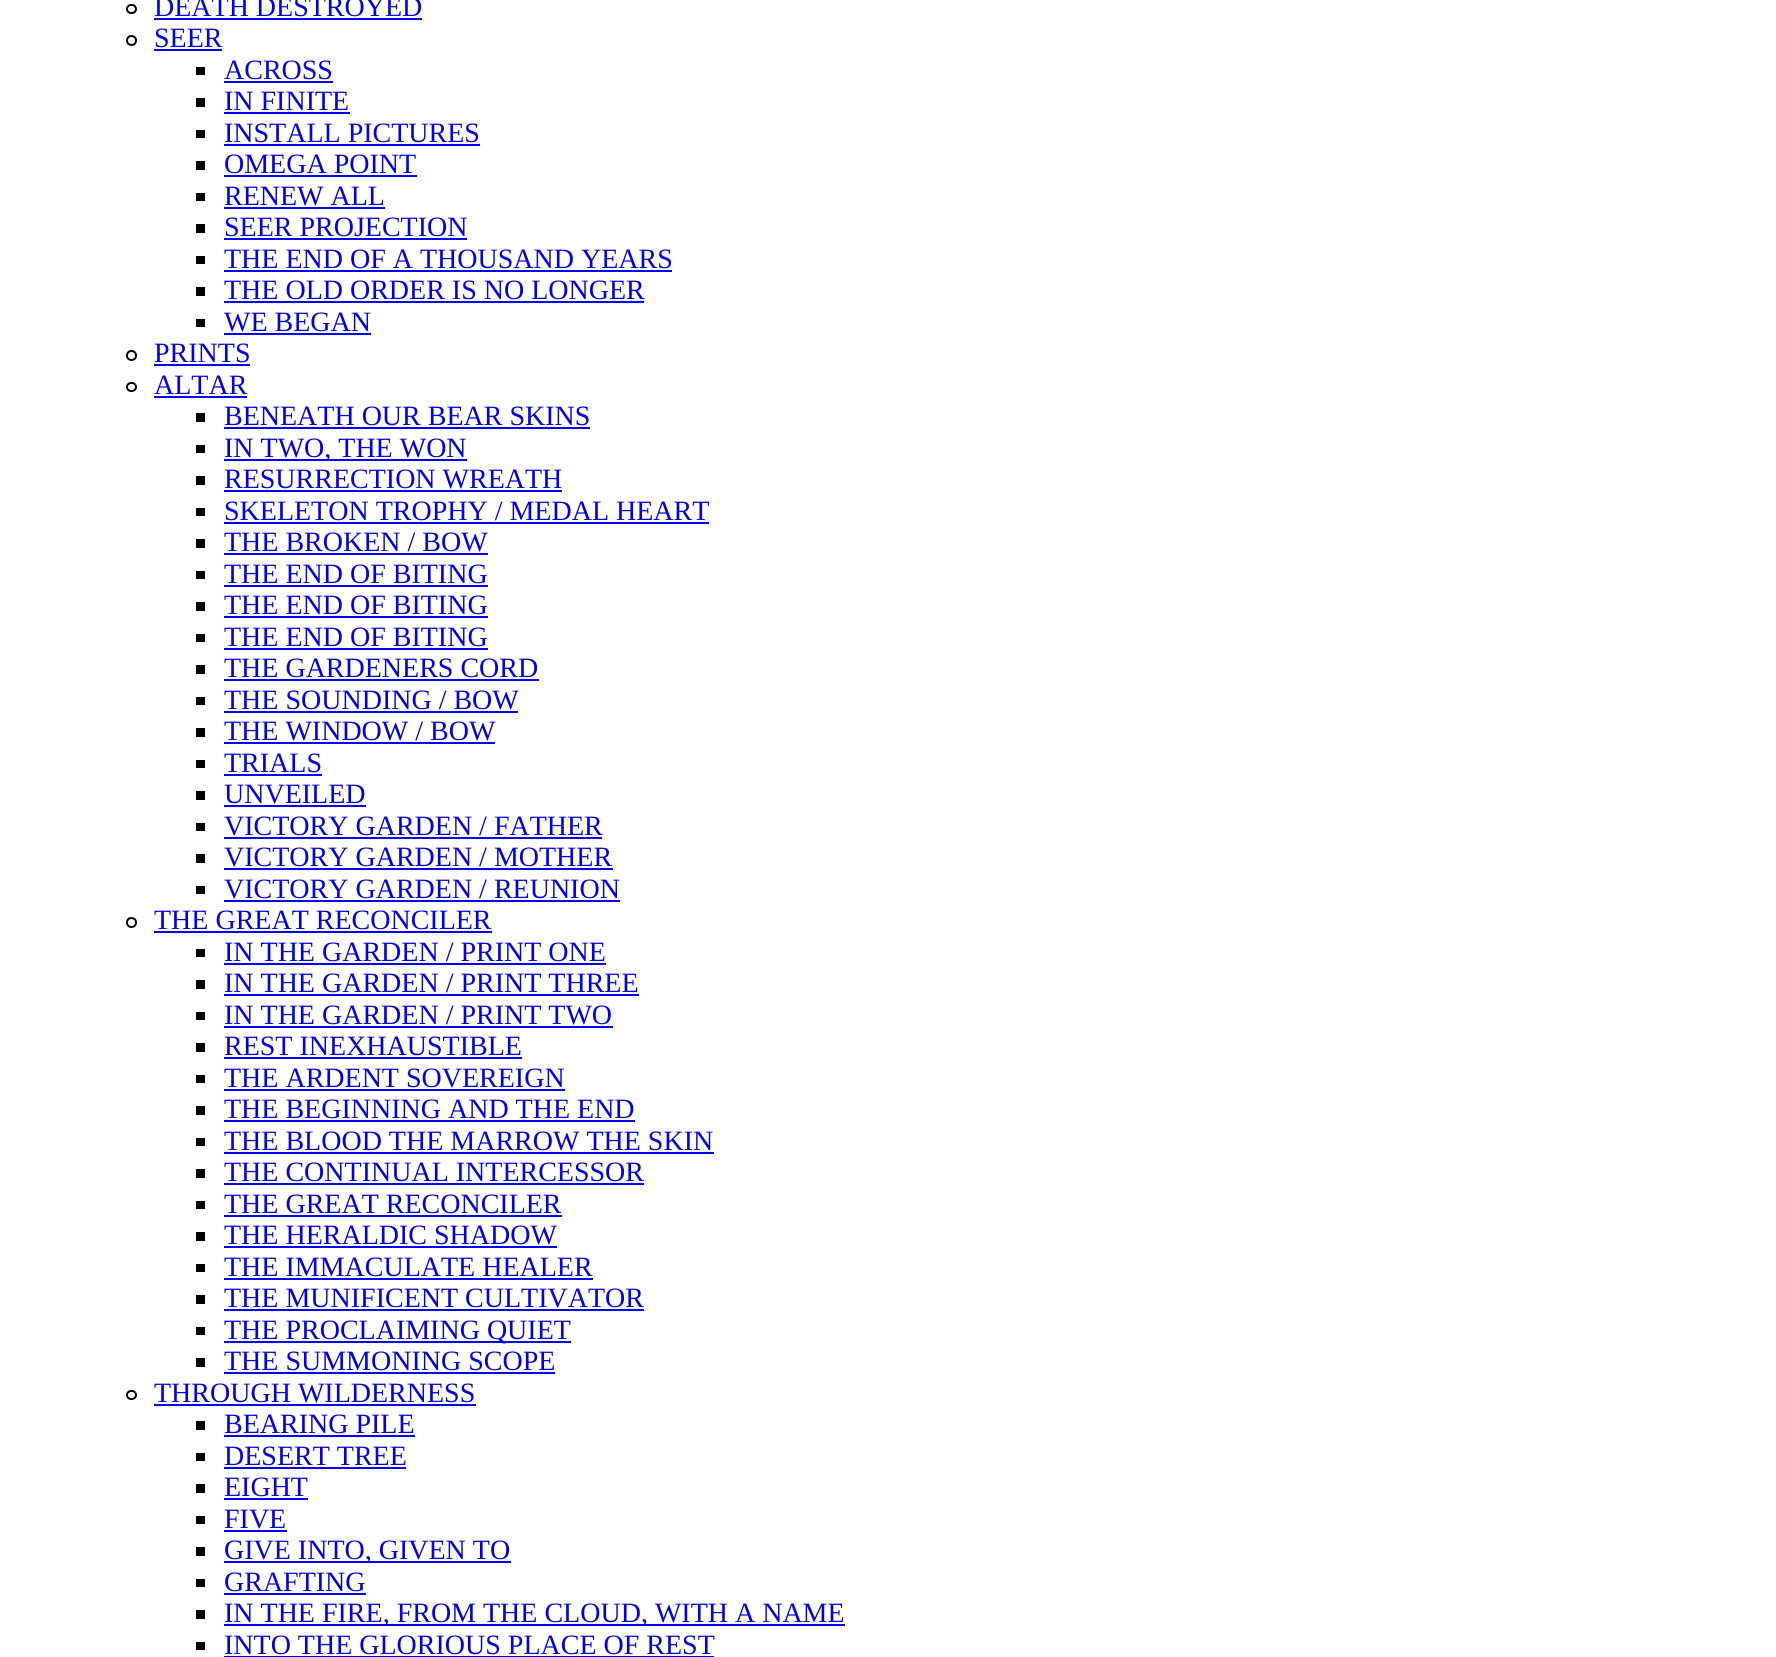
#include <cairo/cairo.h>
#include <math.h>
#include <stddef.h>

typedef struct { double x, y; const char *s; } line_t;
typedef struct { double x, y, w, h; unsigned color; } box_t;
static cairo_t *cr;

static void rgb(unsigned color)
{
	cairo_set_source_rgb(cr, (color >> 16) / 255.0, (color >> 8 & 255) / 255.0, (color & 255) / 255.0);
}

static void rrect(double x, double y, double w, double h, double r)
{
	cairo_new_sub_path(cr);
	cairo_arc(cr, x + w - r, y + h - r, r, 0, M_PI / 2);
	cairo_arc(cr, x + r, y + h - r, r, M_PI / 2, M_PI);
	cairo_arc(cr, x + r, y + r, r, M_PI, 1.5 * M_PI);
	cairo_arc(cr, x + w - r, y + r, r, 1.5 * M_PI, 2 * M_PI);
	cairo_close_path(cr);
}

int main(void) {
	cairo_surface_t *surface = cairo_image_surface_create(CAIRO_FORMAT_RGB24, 1776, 1657);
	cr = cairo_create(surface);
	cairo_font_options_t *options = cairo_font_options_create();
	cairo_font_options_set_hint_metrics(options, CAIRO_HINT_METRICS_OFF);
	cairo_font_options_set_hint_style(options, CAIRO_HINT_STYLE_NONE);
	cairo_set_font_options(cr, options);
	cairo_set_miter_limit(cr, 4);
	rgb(0xffffff);
	cairo_paint(cr);
	rrect(127, 5, 9, 8, 4);
	rgb(0x000000);
	cairo_stroke(cr);
	rgb(0x0000ee);
	cairo_rectangle(cr, 154, 18, 268, 2);
	cairo_fill(cr);
	cairo_arc(cr, 131.5, 40.5, 4.5, 0, 2 * M_PI);
	rgb(0x000000);
	cairo_stroke(cr);
	{
		static const box_t items[] = {
			{154, 49, 68, 2, 0x0000ee},
			{196, 67, 9, 8, 0x000000},
			{224, 81, 109, 2, 0x0000ee},
			{196, 98, 9, 9, 0x000000},
			{224, 112, 126, 2, 0x0000ee},
			{196, 130, 9, 8, 0x000000},
			{224, 144, 256, 2, 0x0000ee},
			{196, 161, 9, 9, 0x000000},
			{224, 175, 193, 2, 0x0000ee},
			{196, 193, 9, 8, 0x000000},
			{224, 207, 161, 2, 0x0000ee},
			{196, 224, 9, 9, 0x000000},
			{224, 238, 243, 2, 0x0000ee},
			{196, 256, 9, 8, 0x000000},
			{224, 270, 448, 2, 0x0000ee},
			{196, 287, 9, 9, 0x000000},
			{224, 301, 420, 2, 0x0000ee},
			{196, 319, 9, 8, 0x000000},
			{224, 333, 147, 2, 0x0000ee},
		};
		for (size_t i = 0; i < sizeof items / sizeof *items; i++) {
			rgb(items[i].color);
			cairo_rectangle(cr, items[i].x, items[i].y, items[i].w, items[i].h);
			cairo_fill(cr);
		}
	}
	cairo_arc(cr, 131.5, 355.5, 4.5, 0, 2 * M_PI);
	rgb(0x000000);
	cairo_stroke(cr);
	rgb(0x0000ee);
	cairo_rectangle(cr, 154, 364, 96, 2);
	cairo_fill(cr);
	rrect(127, 383, 9, 8, 4);
	rgb(0x000000);
	cairo_stroke(cr);
	{
		static const box_t items[] = {
			{154, 396, 93, 2, 0x0000ee},
			{196, 413, 9, 9, 0x000000},
			{224, 427, 366, 2, 0x0000ee},
			{196, 445, 9, 8, 0x000000},
			{224, 459, 243, 2, 0x0000ee},
			{196, 476, 9, 9, 0x000000},
			{224, 490, 338, 2, 0x0000ee},
			{196, 508, 9, 8, 0x000000},
			{224, 522, 485, 2, 0x0000ee},
			{196, 539, 9, 9, 0x000000},
			{224, 553, 264, 2, 0x0000ee},
			{196, 571, 9, 8, 0x000000},
			{224, 585, 264, 2, 0x0000ee},
			{196, 602, 9, 9, 0x000000},
			{224, 616, 264, 2, 0x0000ee},
			{196, 634, 9, 8, 0x000000},
			{224, 648, 264, 2, 0x0000ee},
			{196, 665, 9, 9, 0x000000},
			{224, 679, 315, 2, 0x0000ee},
			{196, 697, 9, 8, 0x000000},
			{224, 711, 294, 2, 0x0000ee},
			{196, 728, 9, 9, 0x000000},
			{224, 742, 271, 2, 0x0000ee},
			{196, 760, 9, 8, 0x000000},
			{224, 774, 98, 2, 0x0000ee},
			{196, 791, 9, 9, 0x000000},
			{224, 805, 142, 2, 0x0000ee},
			{196, 823, 9, 8, 0x000000},
			{224, 837, 378, 2, 0x0000ee},
			{196, 854, 9, 9, 0x000000},
			{224, 868, 389, 2, 0x0000ee},
			{196, 886, 9, 8, 0x000000},
			{224, 900, 396, 2, 0x0000ee},
		};
		for (size_t i = 0; i < sizeof items / sizeof *items; i++) {
			rgb(items[i].color);
			cairo_rectangle(cr, items[i].x, items[i].y, items[i].w, items[i].h);
			cairo_fill(cr);
		}
	}
	cairo_arc(cr, 131.5, 922.5, 4.5, 0, 2 * M_PI);
	rgb(0x000000);
	cairo_stroke(cr);
	{
		static const box_t items[] = {
			{154, 931, 338, 2, 0x0000ee},
			{196, 949, 9, 8, 0x000000},
			{224, 963, 382, 2, 0x0000ee},
			{196, 980, 9, 9, 0x000000},
			{224, 994, 415, 2, 0x0000ee},
			{196, 1012, 9, 8, 0x000000},
			{224, 1026, 389, 2, 0x0000ee},
			{196, 1043, 9, 9, 0x000000},
			{224, 1057, 298, 2, 0x0000ee},
			{196, 1075, 9, 8, 0x000000},
			{224, 1089, 341, 2, 0x0000ee},
			{196, 1106, 9, 9, 0x000000},
			{224, 1120, 411, 2, 0x0000ee},
			{196, 1138, 9, 8, 0x000000},
			{224, 1152, 490, 2, 0x0000ee},
			{196, 1169, 9, 9, 0x000000},
			{224, 1183, 420, 2, 0x0000ee},
			{196, 1201, 9, 8, 0x000000},
			{224, 1215, 338, 2, 0x0000ee},
			{196, 1232, 9, 9, 0x000000},
			{224, 1246, 333, 2, 0x0000ee},
			{196, 1264, 9, 8, 0x000000},
			{224, 1278, 369, 2, 0x0000ee},
			{196, 1295, 9, 9, 0x000000},
			{224, 1309, 420, 2, 0x0000ee},
			{196, 1327, 9, 8, 0x000000},
			{224, 1341, 347, 2, 0x0000ee},
			{196, 1358, 9, 9, 0x000000},
			{224, 1372, 331, 2, 0x0000ee},
		};
		for (size_t i = 0; i < sizeof items / sizeof *items; i++) {
			rgb(items[i].color);
			cairo_rectangle(cr, items[i].x, items[i].y, items[i].w, items[i].h);
			cairo_fill(cr);
		}
	}
	rrect(127, 1391, 9, 8, 4);
	rgb(0x000000);
	cairo_stroke(cr);
	{
		static const box_t items[] = {
			{154, 1404, 322, 2, 0x0000ee},
			{196, 1421, 9, 9, 0x000000},
			{224, 1435, 191, 2, 0x0000ee},
			{196, 1453, 9, 8, 0x000000},
			{224, 1467, 182, 2, 0x0000ee},
			{196, 1484, 9, 9, 0x000000},
			{224, 1498, 84, 2, 0x0000ee},
			{196, 1516, 9, 8, 0x000000},
			{224, 1530, 63, 2, 0x0000ee},
			{196, 1547, 9, 9, 0x000000},
			{224, 1561, 287, 2, 0x0000ee},
			{196, 1579, 9, 8, 0x000000},
			{224, 1593, 142, 2, 0x0000ee},
			{196, 1610, 9, 9, 0x000000},
			{224, 1624, 621, 2, 0x0000ee},
			{196, 1642, 9, 8, 0x000000},
			{224, 1656, 490, 1, 0x0000ee},
		};
		for (size_t i = 0; i < sizeof items / sizeof *items; i++) {
			rgb(items[i].color);
			cairo_rectangle(cr, items[i].x, items[i].y, items[i].w, items[i].h);
			cairo_fill(cr);
		}
	}
	cairo_select_font_face(cr, "Liberation Serif", CAIRO_FONT_SLANT_NORMAL, CAIRO_FONT_WEIGHT_NORMAL);
	cairo_set_font_size(cr, 28);
	{
		static const line_t items[] = {
			{154, 16, "DEATH DESTROYED"},
			{154, 47, "SEER"},
			{224, 79, "ACROSS"},
			{224, 110, "IN FINITE"},
			{224, 142, "INSTALL PICTURES"},
			{224, 173, "OMEGA POINT"},
			{224, 205, "RENEW ALL"},
			{224, 236, "SEER PROJECTION"},
			{224, 268, "THE END OF A THOUSAND YEARS"},
			{224, 299, "THE OLD ORDER IS NO LONGER"},
			{224, 331, "WE BEGAN"},
			{154, 362, "PRINTS"},
			{154, 394, "ALTAR"},
			{224, 425, "BENEATH OUR BEAR SKINS"},
			{224, 457, "IN TWO, THE WON"},
			{224, 488, "RESURRECTION WREATH"},
			{224, 520, "SKELETON TROPHY / MEDAL HEART"},
			{224, 551, "THE BROKEN / BOW"},
			{224, 583, "THE END OF BITING"},
			{224, 614, "THE END OF BITING"},
			{224, 646, "THE END OF BITING"},
			{224, 677, "THE GARDENERS CORD"},
			{224, 709, "THE SOUNDING / BOW"},
			{224, 740, "THE WINDOW / BOW"},
			{224, 772, "TRIALS"},
			{224, 803, "UNVEILED"},
			{224, 835, "VICTORY GARDEN / FATHER"},
			{224, 866, "VICTORY GARDEN / MOTHER"},
			{224, 898, "VICTORY GARDEN / REUNION"},
			{154, 929, "THE GREAT RECONCILER"},
			{224, 961, "IN THE GARDEN / PRINT ONE"},
			{224, 992, "IN THE GARDEN / PRINT THREE"},
			{224, 1024, "IN THE GARDEN / PRINT TWO"},
			{224, 1055, "REST INEXHAUSTIBLE"},
			{224, 1087, "THE ARDENT SOVEREIGN"},
			{224, 1118, "THE BEGINNING AND THE END"},
			{224, 1150, "THE BLOOD THE MARROW THE SKIN"},
			{224, 1181, "THE CONTINUAL INTERCESSOR"},
			{224, 1213, "THE GREAT RECONCILER"},
			{224, 1244, "THE HERALDIC SHADOW"},
			{224, 1276, "THE IMMACULATE HEALER"},
			{224, 1307, "THE MUNIFICENT CULTIVATOR"},
			{224, 1339, "THE PROCLAIMING QUIET"},
			{224, 1370, "THE SUMMONING SCOPE"},
			{154, 1402, "THROUGH WILDERNESS"},
			{224, 1433, "BEARING PILE"},
			{224, 1465, "DESERT TREE"},
			{224, 1496, "EIGHT"},
			{224, 1528, "FIVE"},
			{224, 1559, "GIVE INTO, GIVEN TO"},
			{224, 1591, "GRAFTING"},
			{224, 1622, "IN THE FIRE, FROM THE CLOUD, WITH A NAME"},
			{224, 1654, "INTO THE GLORIOUS PLACE OF REST"},
		};
		for (size_t i = 0; i < sizeof items / sizeof *items; i++) {
			cairo_move_to(cr, items[i].x, items[i].y);
			cairo_show_text(cr, items[i].s);
		}
	}
	cairo_surface_write_to_png(surface, "page.png");
	cairo_font_options_destroy(options);
	cairo_destroy(cr);
	cairo_surface_destroy(surface);
	return 0;
}
